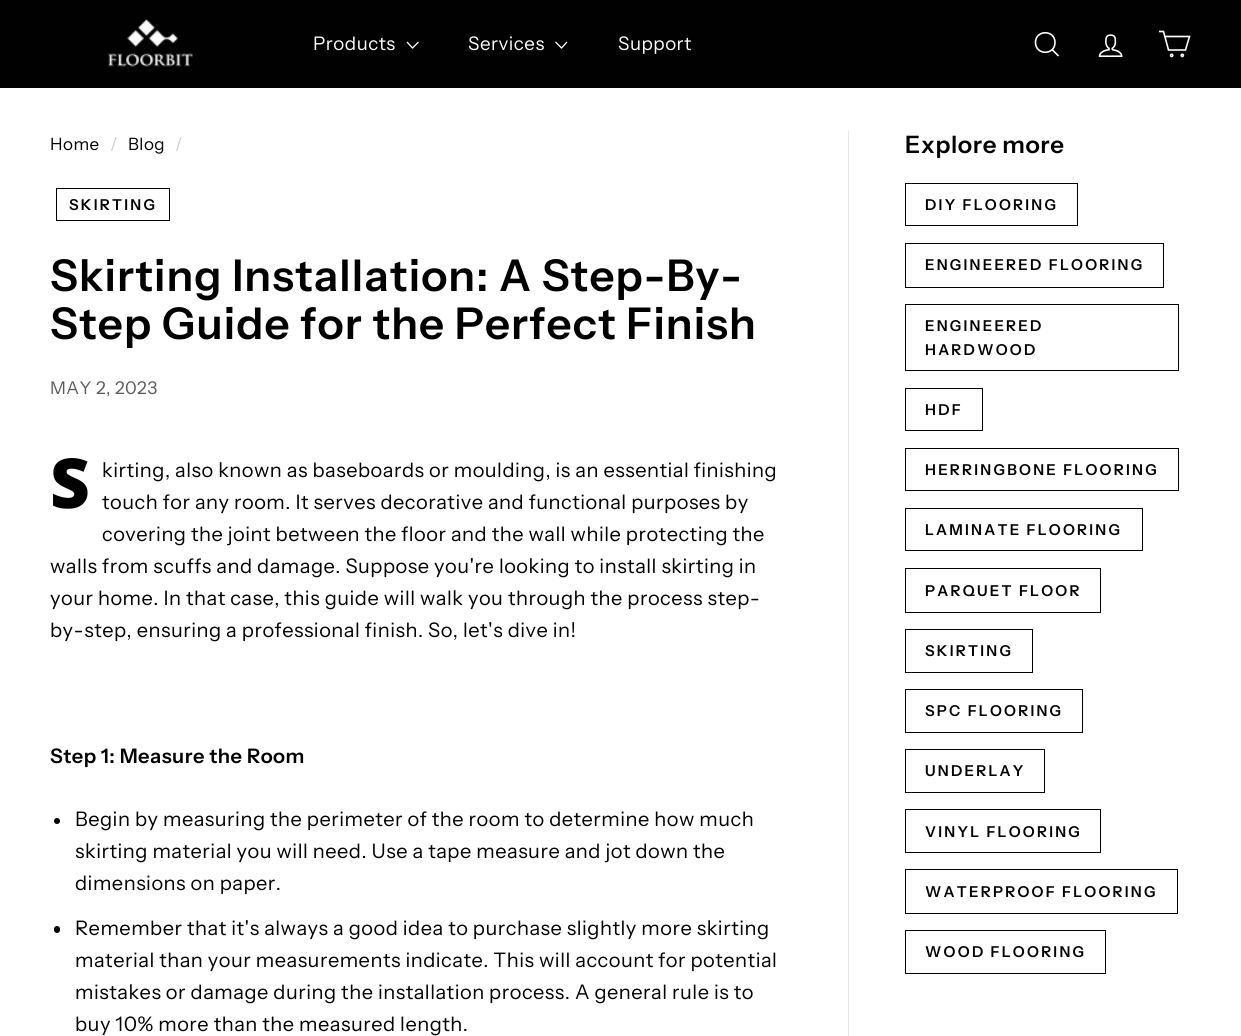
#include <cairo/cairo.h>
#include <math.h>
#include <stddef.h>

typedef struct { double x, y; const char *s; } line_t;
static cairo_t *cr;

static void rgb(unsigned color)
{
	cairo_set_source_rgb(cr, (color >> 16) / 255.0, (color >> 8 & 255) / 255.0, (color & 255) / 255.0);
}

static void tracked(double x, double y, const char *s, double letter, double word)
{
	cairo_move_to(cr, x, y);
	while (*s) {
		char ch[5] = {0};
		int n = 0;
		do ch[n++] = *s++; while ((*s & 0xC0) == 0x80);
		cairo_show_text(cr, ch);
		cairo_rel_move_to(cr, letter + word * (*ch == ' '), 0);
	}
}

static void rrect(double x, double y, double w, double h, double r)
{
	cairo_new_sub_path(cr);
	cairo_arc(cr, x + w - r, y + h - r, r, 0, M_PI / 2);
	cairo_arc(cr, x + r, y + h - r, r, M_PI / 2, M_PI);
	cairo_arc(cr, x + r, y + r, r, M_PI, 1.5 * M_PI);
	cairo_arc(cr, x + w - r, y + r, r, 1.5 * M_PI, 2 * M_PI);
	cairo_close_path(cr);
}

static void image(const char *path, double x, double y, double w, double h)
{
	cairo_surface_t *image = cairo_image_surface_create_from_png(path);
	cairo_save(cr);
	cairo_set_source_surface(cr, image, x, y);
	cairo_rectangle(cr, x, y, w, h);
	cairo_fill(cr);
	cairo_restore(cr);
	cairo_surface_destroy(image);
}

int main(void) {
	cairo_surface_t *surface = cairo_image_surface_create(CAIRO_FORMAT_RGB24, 1241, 1036);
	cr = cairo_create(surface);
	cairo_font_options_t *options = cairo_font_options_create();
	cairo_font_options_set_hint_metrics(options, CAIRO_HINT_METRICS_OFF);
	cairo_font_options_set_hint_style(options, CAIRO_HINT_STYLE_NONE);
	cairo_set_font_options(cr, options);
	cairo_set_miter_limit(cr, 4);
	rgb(0xffffff);
	cairo_paint(cr);
	rgb(0x000100);
	cairo_rectangle(cr, 0, 0, 1241, 88);
	cairo_fill(cr);
	image("img/1.png", 107, 19, 86, 48);
	cairo_new_path(cr);
	cairo_move_to(cr, 407, 42);
	cairo_line_to(cr, 412.5, 48);
	cairo_line_to(cr, 418.5, 42);
	rgb(0xffffff);
	cairo_set_line_width(cr, 1.3);
	cairo_stroke(cr);
	cairo_new_path(cr);
	cairo_move_to(cr, 555.5, 42);
	cairo_line_to(cr, 561.5, 48);
	cairo_line_to(cr, 567, 42);
	cairo_stroke(cr);
	cairo_new_path(cr);
	cairo_move_to(cr, 1055, 42.5);
	cairo_curve_to(cr, 1055, 55.5, 1035.5, 55.5, 1035.5, 42.5);
	cairo_curve_to(cr, 1035.5, 29.5, 1055, 29.5, 1055, 42.5);
	cairo_move_to(cr, 1058.5, 56);
	cairo_line_to(cr, 1052, 49.5);
	cairo_set_line_width(cr, 1.6);
	cairo_stroke(cr);
	image("img/2.png", 1098, 34, 25, 23);
	cairo_new_path(cr);
	cairo_move_to(cr, 1165, 36.5);
	cairo_line_to(cr, 1189.5, 36.5);
	cairo_line_to(cr, 1185.5, 50);
	cairo_line_to(cr, 1168.5, 50);
	cairo_line_to(cr, 1163.5, 31.5);
	cairo_line_to(cr, 1159, 31.5);
	cairo_stroke(cr);
	cairo_arc(cr, 1171.7, 55.4, 1.1, 0, 2 * M_PI);
	cairo_stroke(cr);
	cairo_arc(cr, 1182.3, 55.4, 1.1, 0, 2 * M_PI);
	cairo_stroke(cr);
	cairo_rectangle(cr, 56.5, 188.5, 113, 32);
	rgb(0x000000);
	cairo_set_line_width(cr, 1);
	cairo_stroke(cr);
	cairo_arc(cr, 57, 821, 3, 0, 2 * M_PI);
	cairo_fill(cr);
	rrect(54, 926, 6, 7, 3);
	cairo_fill(cr);
	rgb(0xe8e8e1);
	cairo_rectangle(cr, 848, 131, 1, 905);
	cairo_fill(cr);
	cairo_rectangle(cr, 905.5, 183.5, 172, 42);
	rgb(0x000000);
	cairo_stroke(cr);
	cairo_rectangle(cr, 905.5, 243.5, 258, 44);
	cairo_stroke(cr);
	cairo_rectangle(cr, 905.5, 304.5, 273, 66);
	cairo_stroke(cr);
	cairo_rectangle(cr, 905.5, 388.5, 77, 42);
	cairo_stroke(cr);
	cairo_rectangle(cr, 905.5, 448.5, 273, 42);
	cairo_stroke(cr);
	cairo_rectangle(cr, 905.5, 508.5, 237, 42);
	cairo_stroke(cr);
	cairo_rectangle(cr, 905.5, 568.5, 195, 44);
	cairo_stroke(cr);
	cairo_rectangle(cr, 905.5, 629.5, 127, 43);
	cairo_stroke(cr);
	cairo_rectangle(cr, 905.5, 689.5, 177, 43);
	cairo_stroke(cr);
	cairo_rectangle(cr, 905.5, 749.5, 139, 43);
	cairo_stroke(cr);
	cairo_rectangle(cr, 905.5, 809.5, 195, 43);
	cairo_stroke(cr);
	cairo_rectangle(cr, 905.5, 869.5, 272, 44);
	cairo_stroke(cr);
	cairo_rectangle(cr, 905.5, 930.5, 200, 43);
	cairo_stroke(cr);
	cairo_select_font_face(cr, "Instrument Sans", CAIRO_FONT_SLANT_NORMAL, CAIRO_FONT_WEIGHT_NORMAL);
	cairo_set_font_size(cr, 18.75);
	rgb(0xffffff);
	{
		static const line_t items[] = {
			{313, 50, "Products"},
			{468, 50, "Services"},
			{618, 50, "Support"},
		};
		for (size_t i = 0; i < sizeof items / sizeof *items; i++) {
			tracked(items[i].x, items[i].y, items[i].s, 0.5, 0);
		}
	}
	cairo_set_font_size(cr, 17);
	rgb(0x000000);
	tracked(50, 150, "Home", 0.5, 0);
	rgb(0xcccccc);
	tracked(110, 150, "/", 0.5, 0);
	rgb(0x000000);
	tracked(128, 150, "Blog", 0.5, 0);
	rgb(0xcccccc);
	tracked(175, 150, "/", 0.5, 0);
	cairo_select_font_face(cr, "Instrument Sans SemiBold", CAIRO_FONT_SLANT_NORMAL, CAIRO_FONT_WEIGHT_NORMAL);
	cairo_set_font_size(cr, 15);
	rgb(0x000000);
	tracked(69, 210, "SKIRTING", 2.25, 0);
	cairo_set_font_size(cr, 43.75);
	tracked(50, 291, "Skirting Installation: A Step-By-", 1.1, 0);
	tracked(50, 339, "Step Guide for the Perfect Finish", 1.1, 0);
	cairo_select_font_face(cr, "Instrument Sans", CAIRO_FONT_SLANT_NORMAL, CAIRO_FONT_WEIGHT_NORMAL);
	cairo_set_font_size(cr, 17.5);
	rgb(0x595959);
	tracked(50, 394, "MAY 2, 2023", 0.5, 0);
	cairo_select_font_face(cr, "Noto Sans Black", CAIRO_FONT_SLANT_NORMAL, CAIRO_FONT_WEIGHT_NORMAL);
	cairo_set_font_size(cr, 69);
	rgb(0x000000);
	tracked(50, 508, "S", 0.5, 0);
	cairo_select_font_face(cr, "Instrument Sans", CAIRO_FONT_SLANT_NORMAL, CAIRO_FONT_WEIGHT_NORMAL);
	cairo_set_font_size(cr, 20);
	{
		static const line_t items[] = {
			{102, 477, "kirting, also known as baseboards or moulding, is an essential finishing"},
			{102, 509, "touch for any room. It serves decorative and functional purposes by"},
			{102, 541, "covering the joint between the floor and the wall while protecting the"},
			{50, 573, "walls from scuffs and damage. Suppose you're looking to install skirting in"},
			{50, 605, "your home. In that case, this guide will walk you through the process step-"},
			{50, 637, "by-step, ensuring a professional finish. So, let's dive in!"},
		};
		for (size_t i = 0; i < sizeof items / sizeof *items; i++) {
			tracked(items[i].x, items[i].y, items[i].s, 0.5, 0);
		}
	}
	cairo_select_font_face(cr, "Instrument Sans SemiBold", CAIRO_FONT_SLANT_NORMAL, CAIRO_FONT_WEIGHT_NORMAL);
	tracked(50, 763, "Step 1: Measure the Room", 0.5, 0);
	cairo_select_font_face(cr, "Instrument Sans", CAIRO_FONT_SLANT_NORMAL, CAIRO_FONT_WEIGHT_NORMAL);
	{
		static const line_t items[] = {
			{75, 826, "Begin by measuring the perimeter of the room to determine how much"},
			{75, 858, "skirting material you will need. Use a tape measure and jot down the"},
			{75, 890, "dimensions on paper."},
			{75, 935, "Remember that it's always a good idea to purchase slightly more skirting"},
			{75, 967, "material than your measurements indicate. This will account for potential"},
			{75, 999, "mistakes or damage during the installation process. A general rule is to"},
			{75, 1031, "buy 10% more than the measured length."},
		};
		for (size_t i = 0; i < sizeof items / sizeof *items; i++) {
			tracked(items[i].x, items[i].y, items[i].s, 0.5, 0);
		}
	}
	cairo_select_font_face(cr, "Instrument Sans SemiBold", CAIRO_FONT_SLANT_NORMAL, CAIRO_FONT_WEIGHT_NORMAL);
	cairo_set_font_size(cr, 24);
	tracked(905, 153, "Explore more", 0.6, 0);
	cairo_set_font_size(cr, 15);
	{
		static const line_t items[] = {
			{925, 210, "DIY FLOORING"},
			{925, 270, "ENGINEERED FLOORING"},
			{925, 331, "ENGINEERED"},
			{925, 355, "HARDWOOD"},
			{925, 415, "HDF"},
			{925, 475, "HERRINGBONE FLOORING"},
			{925, 535, "LAMINATE FLOORING"},
			{925, 596, "PARQUET FLOOR"},
			{925, 656, "SKIRTING"},
			{925, 716, "SPC FLOORING"},
			{925, 776, "UNDERLAY"},
			{925, 837, "VINYL FLOORING"},
			{925, 897, "WATERPROOF FLOORING"},
			{925, 957, "WOOD FLOORING"},
		};
		for (size_t i = 0; i < sizeof items / sizeof *items; i++) {
			tracked(items[i].x, items[i].y, items[i].s, 2.25, 0);
		}
	}
	cairo_surface_write_to_png(surface, "page.png");
	cairo_font_options_destroy(options);
	cairo_destroy(cr);
	cairo_surface_destroy(surface);
	return 0;
}
